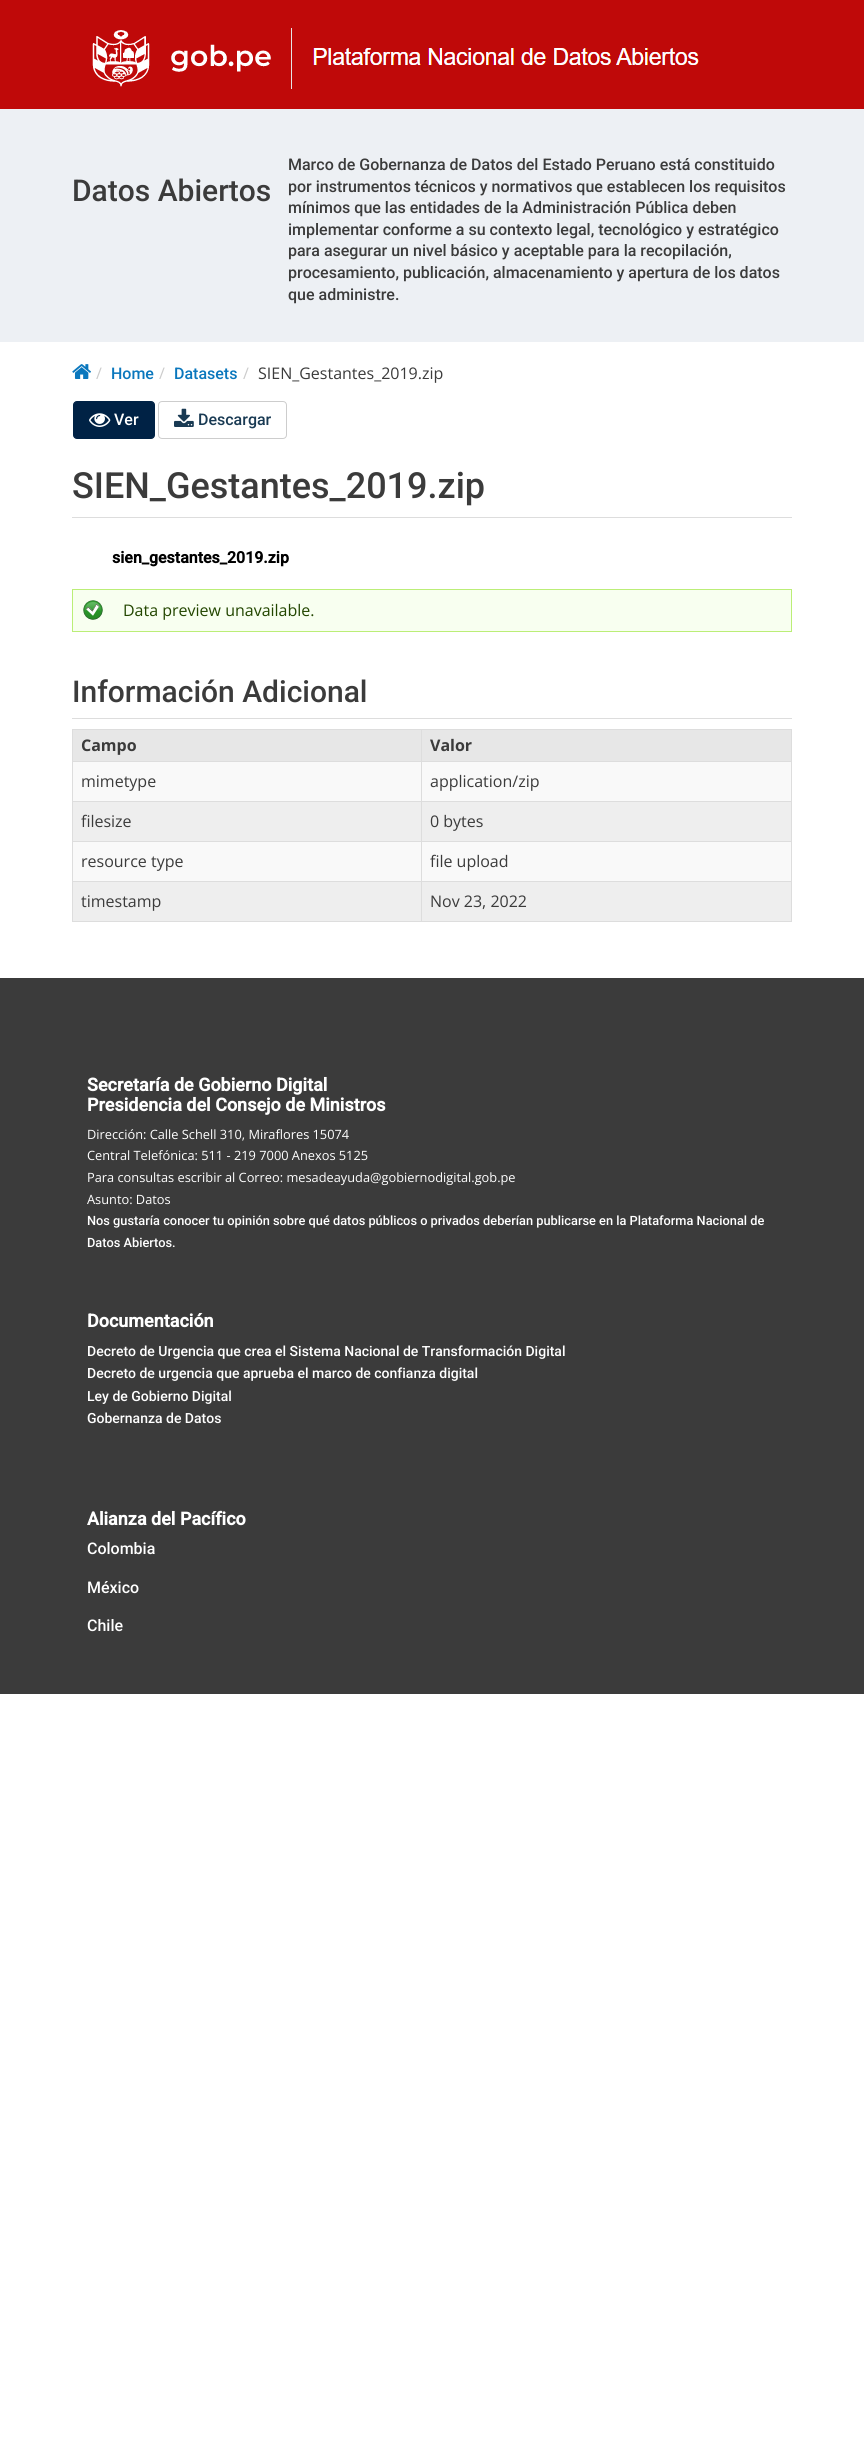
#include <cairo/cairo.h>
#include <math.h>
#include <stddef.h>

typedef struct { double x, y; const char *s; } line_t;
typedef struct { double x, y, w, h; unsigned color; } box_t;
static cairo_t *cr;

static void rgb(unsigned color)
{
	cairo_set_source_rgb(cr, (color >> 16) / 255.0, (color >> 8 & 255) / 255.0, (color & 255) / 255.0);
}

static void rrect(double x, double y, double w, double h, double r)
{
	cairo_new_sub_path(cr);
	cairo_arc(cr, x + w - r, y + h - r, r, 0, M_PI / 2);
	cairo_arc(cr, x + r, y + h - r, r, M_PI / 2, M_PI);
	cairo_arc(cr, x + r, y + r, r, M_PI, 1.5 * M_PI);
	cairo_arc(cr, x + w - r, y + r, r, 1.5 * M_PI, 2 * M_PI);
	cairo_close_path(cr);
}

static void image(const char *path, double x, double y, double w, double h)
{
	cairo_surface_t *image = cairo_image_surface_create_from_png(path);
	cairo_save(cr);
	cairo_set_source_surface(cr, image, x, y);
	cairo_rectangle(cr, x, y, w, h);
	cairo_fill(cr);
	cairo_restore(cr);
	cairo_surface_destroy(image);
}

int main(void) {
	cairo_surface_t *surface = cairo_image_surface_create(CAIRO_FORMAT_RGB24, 864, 2463);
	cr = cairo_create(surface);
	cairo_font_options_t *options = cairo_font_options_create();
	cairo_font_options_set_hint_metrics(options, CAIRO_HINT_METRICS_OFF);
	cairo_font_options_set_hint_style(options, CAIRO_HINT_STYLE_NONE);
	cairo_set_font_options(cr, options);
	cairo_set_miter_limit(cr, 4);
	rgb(0xffffff);
	cairo_paint(cr);
	rgb(0xbf0909);
	cairo_rectangle(cr, 0, 0, 864, 109);
	cairo_fill(cr);
	image("img/1.png", 92, 28, 607, 61);
	rgb(0xedf0f4);
	cairo_rectangle(cr, 0, 109, 864, 233);
	cairo_fill(cr);
	image("img/2.png", 72, 364, 19, 15);
	rgb(0x002245);
	rrect(73.5, 401.5, 81, 37, 3.5);
	cairo_fill_preserve(cr);
	cairo_set_line_width(cr, 1);
	cairo_stroke(cr);
	image("img/3.png", 89, 413, 22, 14);
	rrect(158.5, 401.5, 128, 37, 3.5);
	rgb(0xcdcdcd);
	cairo_stroke(cr);
	image("img/4.png", 174, 408, 20, 19);
	rgb(0xdddddd);
	cairo_rectangle(cr, 72, 517, 720, 1);
	cairo_fill(cr);
	rgb(0xf8fff0);
	cairo_rectangle(cr, 73, 590, 718, 41);
	cairo_fill(cr);
	image("img/5.png", 83, 600, 20, 20);
	cairo_rectangle(cr, 72.5, 589.5, 719, 42);
	rgb(0xbbee77);
	cairo_stroke(cr);
	{
		static const box_t items[] = {
			{72, 718, 720, 1, 0xdddddd},
			{72, 729, 720, 1, 0xdddddd},
			{791, 729, 1, 152, 0xdddddd},
			{72, 729, 1, 193, 0xdddddd},
			{73, 730, 348, 31, 0xe7e7e7},
			{422, 730, 369, 31, 0xe7e7e7},
			{421, 761, 371, 1, 0xdddddd},
			{73, 762, 718, 39, 0xf9f9f9},
			{421, 801, 371, 1, 0xdddddd},
			{73, 802, 718, 39, 0xeeeeee},
			{421, 841, 371, 1, 0xdddddd},
			{73, 842, 718, 39, 0xf9f9f9},
			{421, 881, 371, 1, 0xdddddd},
			{73, 882, 718, 39, 0xeeeeee},
			{791, 881, 1, 41, 0xdddddd},
			{421, 921, 371, 1, 0xdddddd},
			{421, 881, 1, 41, 0xdddddd},
			{72, 881, 350, 1, 0xdddddd},
			{421, 841, 1, 41, 0xdddddd},
			{72, 841, 350, 1, 0xdddddd},
			{421, 801, 1, 41, 0xdddddd},
			{72, 801, 350, 1, 0xdddddd},
			{421, 761, 1, 41, 0xdddddd},
			{72, 761, 350, 1, 0xdddddd},
			{421, 729, 1, 33, 0xdddddd},
			{72, 921, 350, 1, 0xdddddd},
			{0, 978, 864, 716, 0x3b3b3b},
		};
		for (size_t i = 0; i < sizeof items / sizeof *items; i++) {
			rgb(items[i].color);
			cairo_rectangle(cr, items[i].x, items[i].y, items[i].w, items[i].h);
			cairo_fill(cr);
		}
	}
	cairo_select_font_face(cr, "Roboto Medium", CAIRO_FONT_SLANT_NORMAL, CAIRO_FONT_WEIGHT_NORMAL);
	cairo_set_font_size(cr, 30);
	cairo_move_to(cr, 72, 201);
	cairo_show_text(cr, "Datos Abiertos");
	cairo_set_font_size(cr, 16);
	{
		static const line_t items[] = {
			{288, 170, "Marco de Gobernanza de Datos del Estado Peruano está constituido"},
			{288, 192, "por instrumentos técnicos y normativos que establecen los requisitos"},
			{288, 213, "mínimos que las entidades de la Administración Pública deben"},
			{288, 235, "implementar conforme a su contexto legal, tecnológico y estratégico"},
			{288, 256, "para asegurar un nivel básico y aceptable para la recopilación,"},
			{288, 278, "procesamiento, publicación, almacenamiento y apertura de los datos"},
			{288, 300, "que administre."},
		};
		for (size_t i = 0; i < sizeof items / sizeof *items; i++) {
			cairo_move_to(cr, items[i].x, items[i].y);
			cairo_show_text(cr, items[i].s);
		}
	}
	cairo_select_font_face(cr, "Open Sans", CAIRO_FONT_SLANT_NORMAL, CAIRO_FONT_WEIGHT_NORMAL);
	rgb(0xcccccc);
	cairo_move_to(cr, 96, 379);
	cairo_show_text(cr, "/");
	cairo_select_font_face(cr, "Roboto Medium", CAIRO_FONT_SLANT_NORMAL, CAIRO_FONT_WEIGHT_NORMAL);
	rgb(0x0a77bd);
	cairo_move_to(cr, 111, 379);
	cairo_show_text(cr, "Home");
	cairo_select_font_face(cr, "Open Sans", CAIRO_FONT_SLANT_NORMAL, CAIRO_FONT_WEIGHT_NORMAL);
	rgb(0xcccccc);
	cairo_move_to(cr, 159, 379);
	cairo_show_text(cr, "/");
	cairo_select_font_face(cr, "Roboto Medium", CAIRO_FONT_SLANT_NORMAL, CAIRO_FONT_WEIGHT_NORMAL);
	rgb(0x0a77bd);
	cairo_move_to(cr, 174, 379);
	cairo_show_text(cr, "Datasets");
	cairo_select_font_face(cr, "Open Sans", CAIRO_FONT_SLANT_NORMAL, CAIRO_FONT_WEIGHT_NORMAL);
	rgb(0xcccccc);
	cairo_move_to(cr, 243, 379);
	cairo_show_text(cr, "/");
	rgb(0x3b3b3b);
	cairo_move_to(cr, 258, 379);
	cairo_show_text(cr, "SIEN_Gestantes_2019.zip");
	cairo_select_font_face(cr, "Roboto Medium", CAIRO_FONT_SLANT_NORMAL, CAIRO_FONT_WEIGHT_NORMAL);
	rgb(0xffffff);
	cairo_move_to(cr, 114, 425);
	cairo_show_text(cr, "Ver");
	rgb(0x193a53);
	cairo_move_to(cr, 198, 425);
	cairo_show_text(cr, "Descargar");
	cairo_set_font_size(cr, 36);
	rgb(0x3b3b3b);
	cairo_move_to(cr, 72, 498);
	cairo_show_text(cr, "SIEN_Gestantes_2019.zip");
	cairo_select_font_face(cr, "Roboto", CAIRO_FONT_SLANT_NORMAL, CAIRO_FONT_WEIGHT_BOLD);
	cairo_set_font_size(cr, 16);
	rgb(0x000000);
	cairo_move_to(cr, 112, 563);
	cairo_show_text(cr, "sien_gestantes_2019.zip");
	cairo_select_font_face(cr, "Open Sans", CAIRO_FONT_SLANT_NORMAL, CAIRO_FONT_WEIGHT_NORMAL);
	rgb(0x234600);
	cairo_move_to(cr, 123, 616);
	cairo_show_text(cr, "Data preview unavailable.");
	cairo_select_font_face(cr, "Roboto Medium", CAIRO_FONT_SLANT_NORMAL, CAIRO_FONT_WEIGHT_NORMAL);
	cairo_set_font_size(cr, 30);
	rgb(0x3b3b3b);
	cairo_move_to(cr, 72, 702);
	cairo_show_text(cr, "Información Adicional");
	cairo_select_font_face(cr, "Open Sans", CAIRO_FONT_SLANT_NORMAL, CAIRO_FONT_WEIGHT_BOLD);
	cairo_set_font_size(cr, 16);
	cairo_move_to(cr, 81, 751);
	cairo_show_text(cr, "Campo");
	cairo_move_to(cr, 430, 751);
	cairo_show_text(cr, "Valor");
	cairo_select_font_face(cr, "Open Sans", CAIRO_FONT_SLANT_NORMAL, CAIRO_FONT_WEIGHT_NORMAL);
	{
		static const line_t items[] = {
			{81, 787, "mimetype"},
			{430, 787, "application/zip"},
			{81, 827, "filesize"},
			{430, 827, "0 bytes"},
			{81, 867, "resource type"},
			{430, 867, "file upload"},
			{81, 907, "timestamp"},
			{430, 907, "Nov 23, 2022"},
		};
		for (size_t i = 0; i < sizeof items / sizeof *items; i++) {
			cairo_move_to(cr, items[i].x, items[i].y);
			cairo_show_text(cr, items[i].s);
		}
	}
	cairo_select_font_face(cr, "Roboto", CAIRO_FONT_SLANT_NORMAL, CAIRO_FONT_WEIGHT_BOLD);
	cairo_set_font_size(cr, 18);
	rgb(0xffffff);
	cairo_move_to(cr, 87, 1091);
	cairo_show_text(cr, "Secretaría de Gobierno Digital");
	cairo_move_to(cr, 87, 1111);
	cairo_show_text(cr, "Presidencia del Consejo de Ministros");
	cairo_select_font_face(cr, "Open Sans", CAIRO_FONT_SLANT_NORMAL, CAIRO_FONT_WEIGHT_NORMAL);
	cairo_set_font_size(cr, 12.8);
	{
		static const line_t items[] = {
			{87, 1139, "Dirección: Calle Schell 310, Miraflores 15074"},
			{87, 1160, "Central Telefónica: 511 - 219 7000 Anexos 5125"},
			{87, 1182, "Para consultas escribir al Correo: mesadeayuda@gobiernodigital.gob.pe"},
			{87, 1204, "Asunto: Datos"},
		};
		for (size_t i = 0; i < sizeof items / sizeof *items; i++) {
			cairo_move_to(cr, items[i].x, items[i].y);
			cairo_show_text(cr, items[i].s);
		}
	}
	cairo_select_font_face(cr, "Roboto Medium", CAIRO_FONT_SLANT_NORMAL, CAIRO_FONT_WEIGHT_NORMAL);
	cairo_move_to(cr, 87, 1225);
	cairo_show_text(cr, "Nos gustaría conocer tu opinión sobre qué datos públicos o privados deberían publicarse en la Plataforma Nacional de");
	cairo_move_to(cr, 87, 1247);
	cairo_show_text(cr, "Datos Abiertos.");
	cairo_select_font_face(cr, "Roboto", CAIRO_FONT_SLANT_NORMAL, CAIRO_FONT_WEIGHT_BOLD);
	cairo_set_font_size(cr, 18);
	cairo_move_to(cr, 87, 1327);
	cairo_show_text(cr, "Documentación");
	cairo_select_font_face(cr, "Roboto Medium", CAIRO_FONT_SLANT_NORMAL, CAIRO_FONT_WEIGHT_NORMAL);
	cairo_set_font_size(cr, 14);
	{
		static const line_t items[] = {
			{87, 1356, "Decreto de Urgencia que crea el Sistema Nacional de Transformación Digital"},
			{87, 1378, "Decreto de urgencia que aprueba el marco de confianza digital"},
			{87, 1401, "Ley de Gobierno Digital"},
			{87, 1423, "Gobernanza de Datos"},
		};
		for (size_t i = 0; i < sizeof items / sizeof *items; i++) {
			cairo_move_to(cr, items[i].x, items[i].y);
			cairo_show_text(cr, items[i].s);
		}
	}
	cairo_select_font_face(cr, "Roboto", CAIRO_FONT_SLANT_NORMAL, CAIRO_FONT_WEIGHT_BOLD);
	cairo_set_font_size(cr, 18);
	cairo_move_to(cr, 87, 1525);
	cairo_show_text(cr, "Alianza del Pacífico");
	cairo_select_font_face(cr, "Roboto Medium", CAIRO_FONT_SLANT_NORMAL, CAIRO_FONT_WEIGHT_NORMAL);
	cairo_set_font_size(cr, 16);
	{
		static const line_t items[] = {
			{87, 1554, "Colombia"},
			{87, 1593, "México"},
			{87, 1631, "Chile"},
		};
		for (size_t i = 0; i < sizeof items / sizeof *items; i++) {
			cairo_move_to(cr, items[i].x, items[i].y);
			cairo_show_text(cr, items[i].s);
		}
	}
	cairo_surface_write_to_png(surface, "page.png");
	cairo_font_options_destroy(options);
	cairo_destroy(cr);
	cairo_surface_destroy(surface);
	return 0;
}
